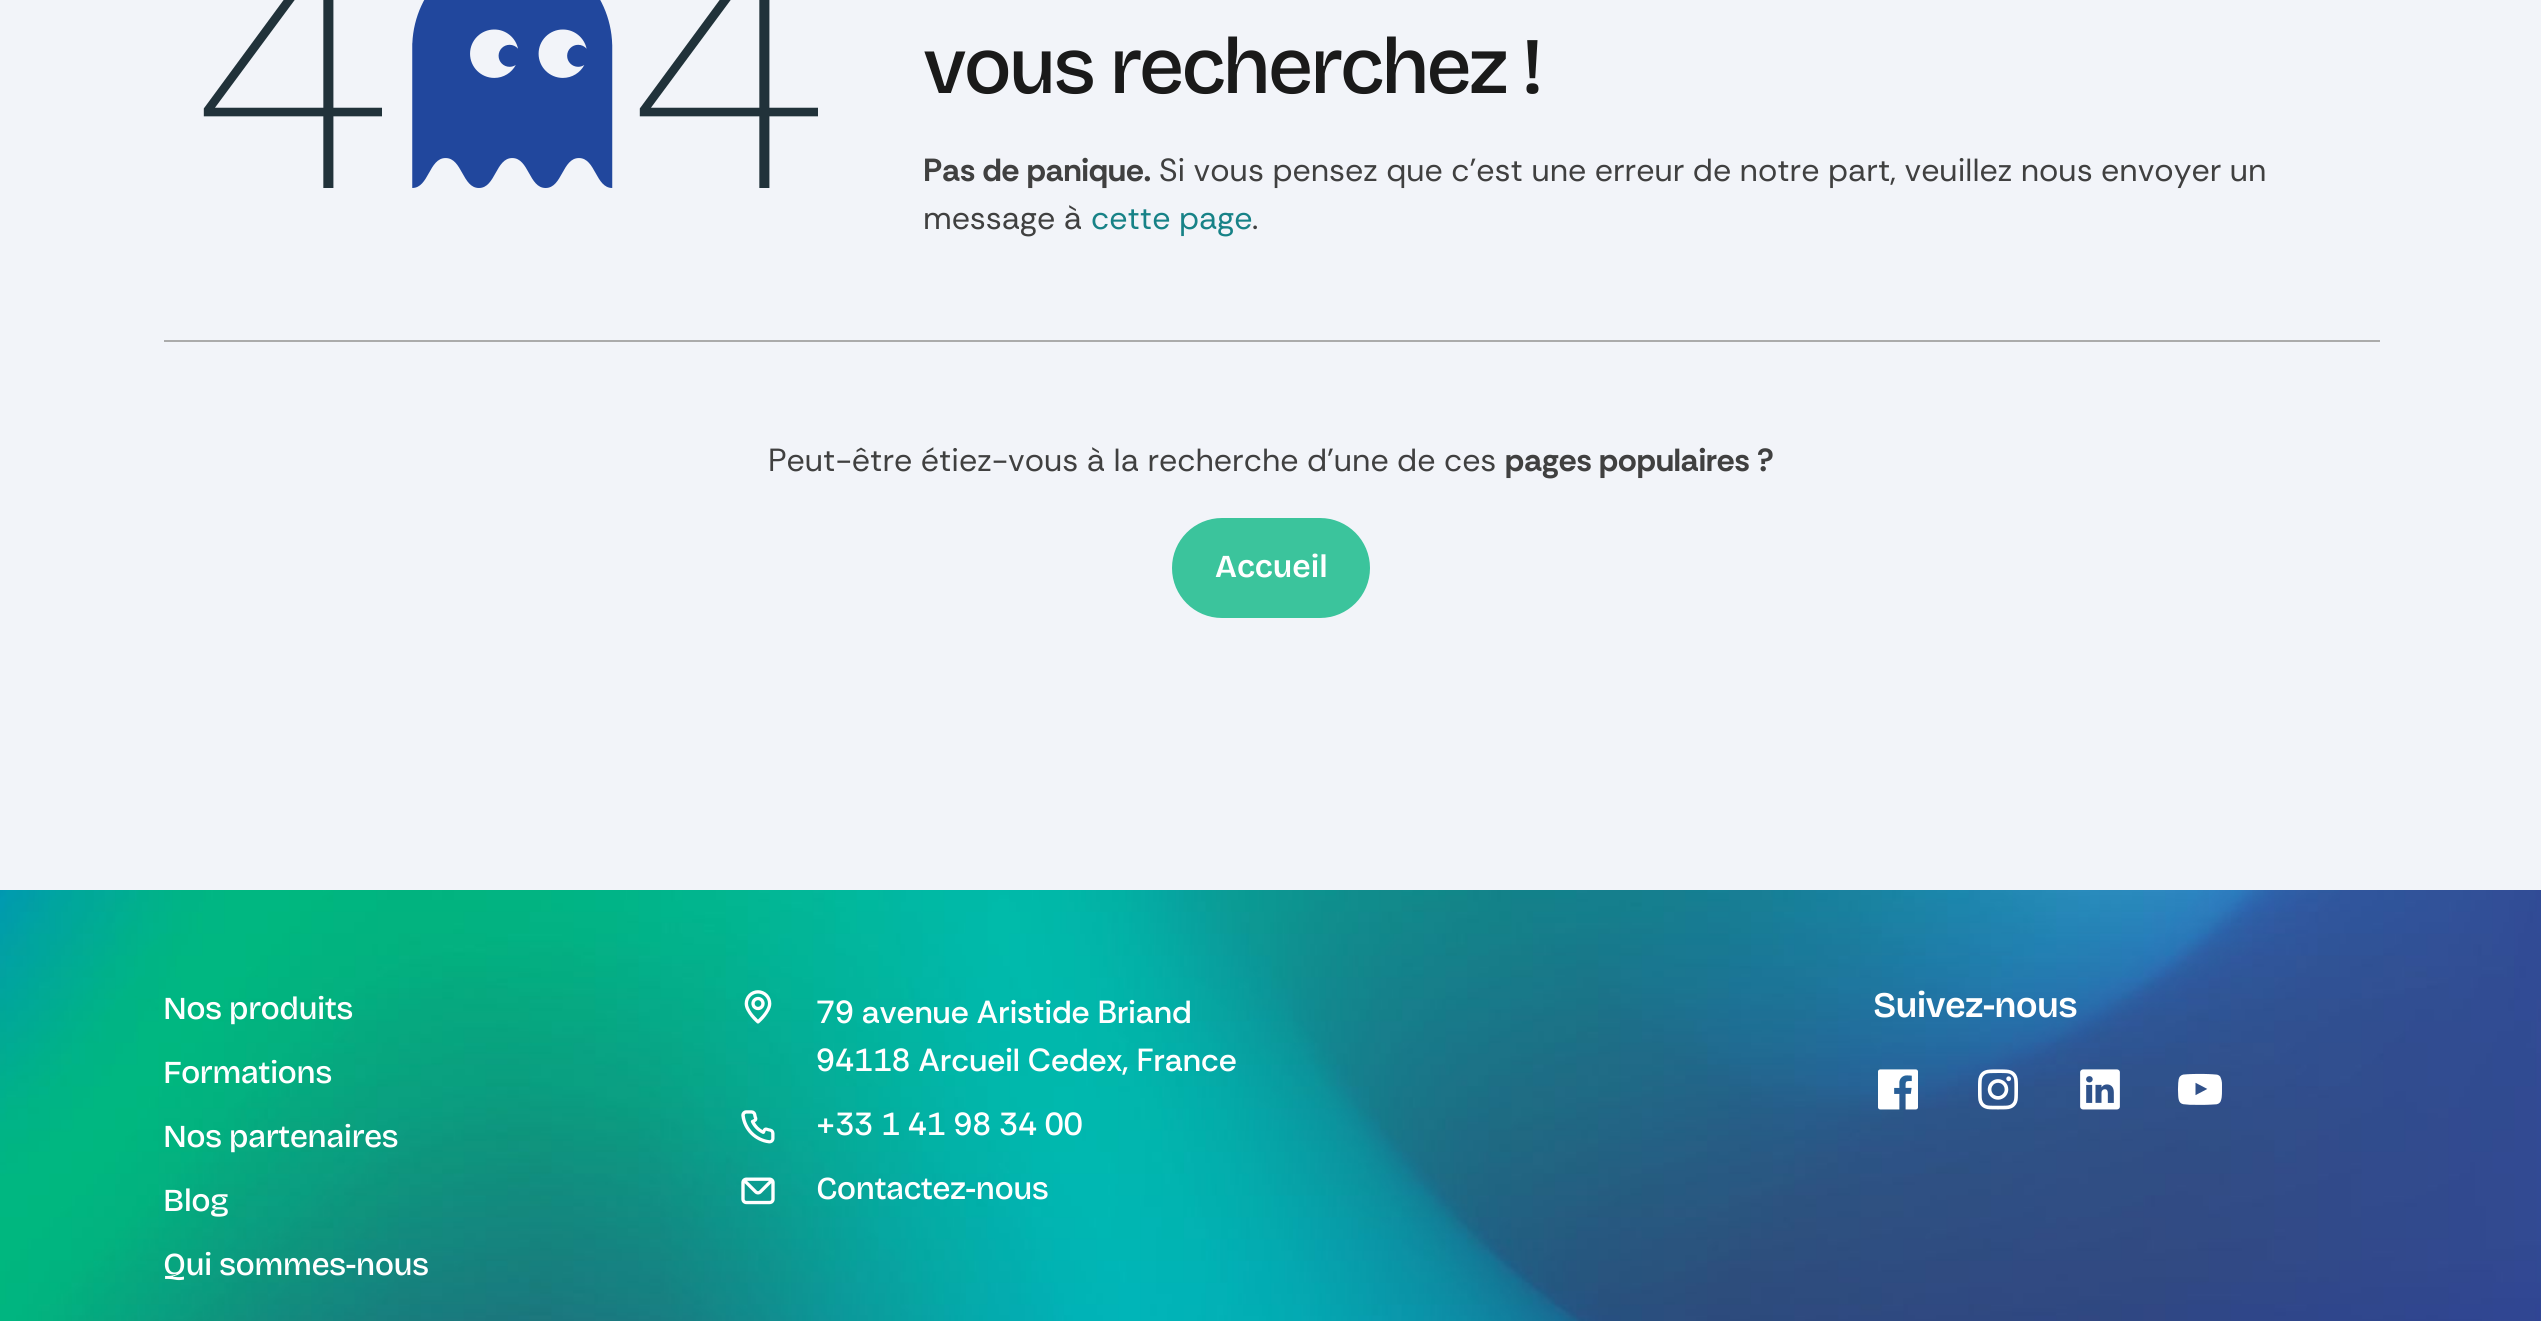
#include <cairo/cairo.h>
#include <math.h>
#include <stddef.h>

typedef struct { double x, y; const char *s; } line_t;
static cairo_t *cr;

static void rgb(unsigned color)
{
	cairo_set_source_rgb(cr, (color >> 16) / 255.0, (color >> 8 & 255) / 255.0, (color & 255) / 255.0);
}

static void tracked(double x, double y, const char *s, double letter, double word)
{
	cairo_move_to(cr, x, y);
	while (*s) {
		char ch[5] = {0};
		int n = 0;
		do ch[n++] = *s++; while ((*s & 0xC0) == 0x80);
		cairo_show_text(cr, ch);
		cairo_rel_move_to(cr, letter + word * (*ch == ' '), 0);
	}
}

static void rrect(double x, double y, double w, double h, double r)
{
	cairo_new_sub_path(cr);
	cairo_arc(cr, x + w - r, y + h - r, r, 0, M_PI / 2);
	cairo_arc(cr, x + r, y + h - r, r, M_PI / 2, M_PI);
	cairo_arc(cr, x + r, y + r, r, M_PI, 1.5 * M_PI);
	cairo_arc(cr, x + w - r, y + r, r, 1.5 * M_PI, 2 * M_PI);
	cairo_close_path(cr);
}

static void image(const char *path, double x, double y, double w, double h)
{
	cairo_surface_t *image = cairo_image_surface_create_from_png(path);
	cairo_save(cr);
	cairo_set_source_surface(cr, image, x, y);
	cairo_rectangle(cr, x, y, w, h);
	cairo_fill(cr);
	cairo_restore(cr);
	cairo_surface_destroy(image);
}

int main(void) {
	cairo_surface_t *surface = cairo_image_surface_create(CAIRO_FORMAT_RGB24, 2541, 1321);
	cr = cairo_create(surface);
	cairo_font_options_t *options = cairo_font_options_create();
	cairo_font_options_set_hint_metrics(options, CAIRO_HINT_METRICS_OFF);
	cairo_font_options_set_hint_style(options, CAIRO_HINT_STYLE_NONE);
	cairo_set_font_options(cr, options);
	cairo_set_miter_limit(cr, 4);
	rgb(0xf2f4f9);
	cairo_paint(cr);
	image("img/1.png", 203, 0, 615, 188);
	rgb(0xababab);
	cairo_rectangle(cr, 164, 340, 2216, 2);
	cairo_fill(cr);
	rgb(0x3bc49c);
	rrect(1173, 519, 196, 98, 49);
	cairo_fill_preserve(cr);
	cairo_stroke(cr);
	image("img/2.png", 0, 890, 2541, 431);
	image("img/3.png", 744, 990, 28, 34);
	image("img/4.png", 741, 1110, 34, 34);
	image("img/5.png", 741, 1177, 34, 28);
	image("img/6.png", 1878, 1069, 40, 41);
	image("img/7.png", 1978, 1069, 40, 41);
	image("img/8.png", 2080, 1069, 40, 41);
	image("img/9.png", 2177, 1073, 45, 32);
	cairo_select_font_face(cr, "Bricolage Grotesque Medium", CAIRO_FONT_SLANT_NORMAL, CAIRO_FONT_WEIGHT_NORMAL);
	cairo_set_font_size(cr, 80);
	rgb(0x1a1a1a);
	tracked(923, 93, "vous recherchez !", -3.25, 0);
	cairo_select_font_face(cr, "Rethink Sans", CAIRO_FONT_SLANT_NORMAL, CAIRO_FONT_WEIGHT_BOLD);
	cairo_set_font_size(cr, 32);
	rgb(0x404040);
	cairo_move_to(cr, 923, 181);
	cairo_show_text(cr, "Pas de panique.");
	cairo_select_font_face(cr, "Rethink Sans", CAIRO_FONT_SLANT_NORMAL, CAIRO_FONT_WEIGHT_NORMAL);
	cairo_move_to(cr, 1159, 181);
	cairo_show_text(cr, "Si vous pensez que c'est une erreur de notre part, veuillez nous envoyer un");
	cairo_move_to(cr, 923, 229);
	cairo_show_text(cr, "message à");
	rgb(0x178287);
	cairo_move_to(cr, 1091, 229);
	cairo_show_text(cr, "cette page");
	rgb(0x404040);
	cairo_move_to(cr, 1252, 229);
	cairo_show_text(cr, ".");
	cairo_move_to(cr, 768, 471);
	cairo_show_text(cr, "Peut-être étiez-vous à la recherche d'une de ces");
	cairo_select_font_face(cr, "Rethink Sans", CAIRO_FONT_SLANT_NORMAL, CAIRO_FONT_WEIGHT_BOLD);
	cairo_move_to(cr, 1505, 471);
	cairo_show_text(cr, "pages populaires ?");
	cairo_select_font_face(cr, "Bricolage Grotesque SemiBold", CAIRO_FONT_SLANT_NORMAL, CAIRO_FONT_WEIGHT_NORMAL);
	rgb(0xffffff);
	cairo_move_to(cr, 1215, 577);
	cairo_show_text(cr, "Accueil");
	cairo_select_font_face(cr, "Bricolage Grotesque Medium", CAIRO_FONT_SLANT_NORMAL, CAIRO_FONT_WEIGHT_NORMAL);
	{
		static const line_t items[] = {
			{163, 1019, "Nos produits"},
			{163, 1083, "Formations"},
			{163, 1147, "Nos partenaires"},
			{163, 1211, "Blog"},
			{163, 1275, "Qui sommes-nous"},
		};
		for (size_t i = 0; i < sizeof items / sizeof *items; i++) {
			tracked(items[i].x, items[i].y, items[i].s, -0.6, 0);
		}
	}
	cairo_select_font_face(cr, "Rethink Sans Medium", CAIRO_FONT_SLANT_NORMAL, CAIRO_FONT_WEIGHT_NORMAL);
	{
		static const line_t items[] = {
			{816, 1023, "79 avenue Aristide Briand"},
			{816, 1071, "94118 Arcueil Cedex, France"},
			{816, 1135, "+33 1 41 98 34 00"},
		};
		for (size_t i = 0; i < sizeof items / sizeof *items; i++) {
			cairo_move_to(cr, items[i].x, items[i].y);
			cairo_show_text(cr, items[i].s);
		}
	}
	cairo_select_font_face(cr, "Bricolage Grotesque Medium", CAIRO_FONT_SLANT_NORMAL, CAIRO_FONT_WEIGHT_NORMAL);
	tracked(816, 1199, "Contactez-nous", -0.6, 0);
	cairo_select_font_face(cr, "Bricolage Grotesque SemiBold", CAIRO_FONT_SLANT_NORMAL, CAIRO_FONT_WEIGHT_NORMAL);
	cairo_set_font_size(cr, 36);
	tracked(1873, 1017, "Suivez-nous", -0.75, 0);
	cairo_surface_write_to_png(surface, "page.png");
	cairo_font_options_destroy(options);
	cairo_destroy(cr);
	cairo_surface_destroy(surface);
	return 0;
}
